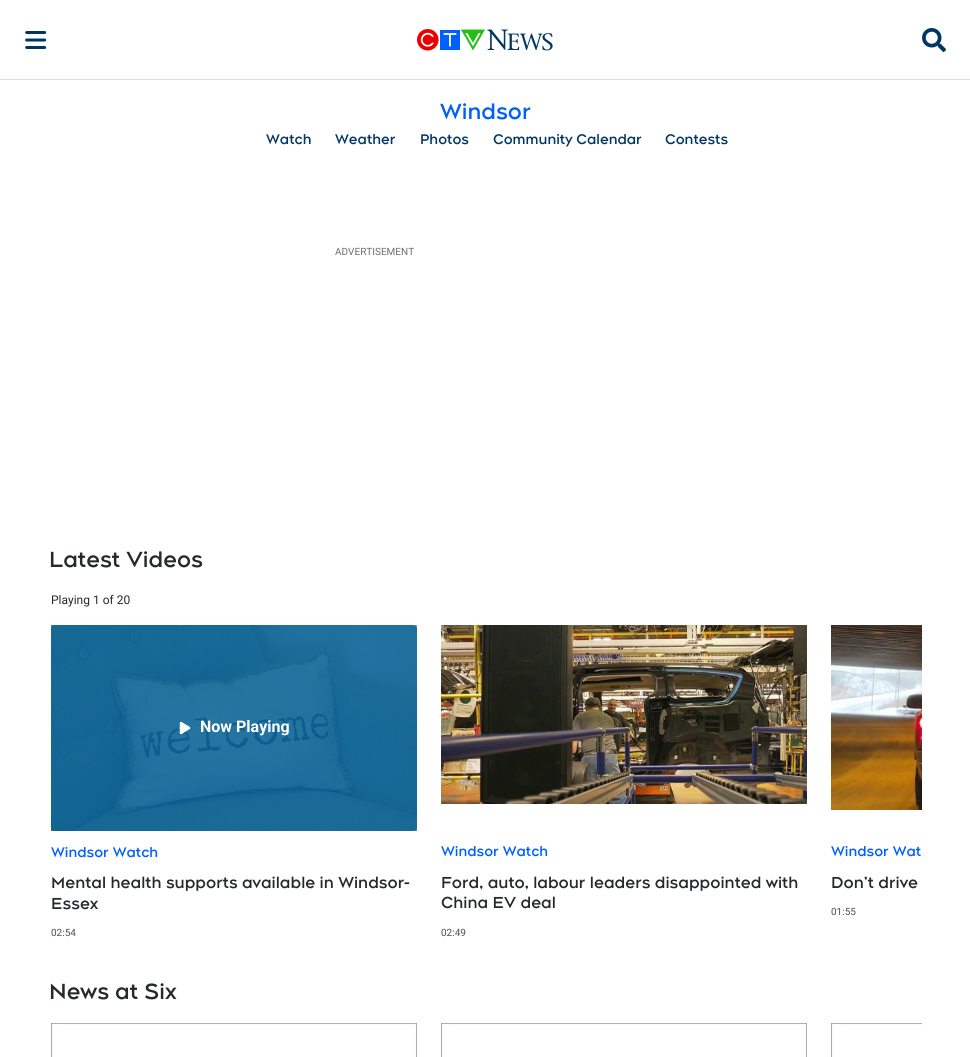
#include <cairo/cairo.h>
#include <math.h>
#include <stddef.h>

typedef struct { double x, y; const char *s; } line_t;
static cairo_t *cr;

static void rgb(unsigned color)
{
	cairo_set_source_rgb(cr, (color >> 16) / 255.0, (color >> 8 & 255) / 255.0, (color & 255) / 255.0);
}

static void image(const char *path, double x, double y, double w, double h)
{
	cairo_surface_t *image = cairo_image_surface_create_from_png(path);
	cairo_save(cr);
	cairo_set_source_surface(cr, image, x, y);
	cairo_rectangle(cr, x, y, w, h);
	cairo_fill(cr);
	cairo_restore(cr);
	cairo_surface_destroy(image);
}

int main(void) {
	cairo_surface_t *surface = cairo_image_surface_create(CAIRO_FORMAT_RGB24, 970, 1057);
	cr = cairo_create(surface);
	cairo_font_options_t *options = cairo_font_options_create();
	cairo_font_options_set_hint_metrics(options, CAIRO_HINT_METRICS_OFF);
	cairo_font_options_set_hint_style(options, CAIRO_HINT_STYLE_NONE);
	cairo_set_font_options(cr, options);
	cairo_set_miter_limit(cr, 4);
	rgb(0xffffff);
	cairo_paint(cr);
	rgb(0xdddddd);
	cairo_rectangle(cr, 0, 79, 970, 1);
	cairo_fill(cr);
	image("img/1.png", 25, 31, 22, 18);
	image("img/2.png", 417, 29, 136, 22);
	image("img/3.png", 922, 28, 24, 24);
	image("img/4.png", 51, 625, 366, 206);
	image("img/5.png", 179, 721, 12, 14);
	image("img/6.png", 441, 625, 366, 179);
	image("img/7.png", 831, 625, 91, 185);
	image("img/8.png", 51, 1023, 366, 34);
	image("img/8.png", 441, 1023, 366, 34);
	image("img/9.png", 831, 1023, 91, 34);
	cairo_select_font_face(cr, "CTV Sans", CAIRO_FONT_SLANT_NORMAL, CAIRO_FONT_WEIGHT_BOLD);
	cairo_set_font_size(cr, 22);
	rgb(0x005fff);
	cairo_move_to(cr, 440, 119);
	cairo_show_text(cr, "Windsor");
	cairo_set_font_size(cr, 14);
	rgb(0x003662);
	{
		static const line_t items[] = {
			{266, 144, "Watch"},
			{335, 144, "Weather"},
			{420, 144, "Photos"},
			{493, 144, "Community Calendar"},
			{665, 144, "Contests"},
		};
		for (size_t i = 0; i < sizeof items / sizeof *items; i++) {
			cairo_move_to(cr, items[i].x, items[i].y);
			cairo_show_text(cr, items[i].s);
		}
	}
	cairo_select_font_face(cr, "Roboto", CAIRO_FONT_SLANT_NORMAL, CAIRO_FONT_WEIGHT_NORMAL);
	cairo_set_font_size(cr, 10);
	rgb(0x6e6e6e);
	cairo_move_to(cr, 335, 255);
	cairo_show_text(cr, "ADVERTISEMENT");
	cairo_select_font_face(cr, "CTV Sans", CAIRO_FONT_SLANT_NORMAL, CAIRO_FONT_WEIGHT_BOLD);
	cairo_set_font_size(cr, 22);
	rgb(0x26292b);
	cairo_move_to(cr, 49, 567);
	cairo_show_text(cr, "Latest Videos");
	cairo_select_font_face(cr, "Roboto", CAIRO_FONT_SLANT_NORMAL, CAIRO_FONT_WEIGHT_NORMAL);
	cairo_set_font_size(cr, 12);
	cairo_move_to(cr, 51, 604);
	cairo_show_text(cr, "Playing 1 of 20");
	cairo_select_font_face(cr, "Roboto", CAIRO_FONT_SLANT_NORMAL, CAIRO_FONT_WEIGHT_BOLD);
	cairo_set_font_size(cr, 16);
	rgb(0xffffff);
	cairo_move_to(cr, 200, 732);
	cairo_show_text(cr, "Now Playing");
	cairo_select_font_face(cr, "CTV Sans", CAIRO_FONT_SLANT_NORMAL, CAIRO_FONT_WEIGHT_BOLD);
	cairo_set_font_size(cr, 14);
	rgb(0x005fff);
	cairo_move_to(cr, 51, 857);
	cairo_show_text(cr, "Windsor Watch");
	cairo_set_font_size(cr, 16);
	rgb(0x26292b);
	cairo_move_to(cr, 51, 888);
	cairo_show_text(cr, "Mental health supports available in Windsor-");
	cairo_move_to(cr, 51, 909);
	cairo_show_text(cr, "Essex");
	cairo_select_font_face(cr, "Roboto", CAIRO_FONT_SLANT_NORMAL, CAIRO_FONT_WEIGHT_NORMAL);
	cairo_set_font_size(cr, 10);
	rgb(0x4f4f4f);
	cairo_move_to(cr, 51, 936);
	cairo_show_text(cr, "02:54");
	cairo_select_font_face(cr, "CTV Sans", CAIRO_FONT_SLANT_NORMAL, CAIRO_FONT_WEIGHT_BOLD);
	cairo_set_font_size(cr, 14);
	rgb(0x005fff);
	cairo_move_to(cr, 441, 856);
	cairo_show_text(cr, "Windsor Watch");
	cairo_set_font_size(cr, 16);
	rgb(0x26292b);
	cairo_move_to(cr, 441, 888);
	cairo_show_text(cr, "Ford, auto, labour leaders disappointed with");
	cairo_move_to(cr, 441, 908);
	cairo_show_text(cr, "China EV deal");
	cairo_select_font_face(cr, "Roboto", CAIRO_FONT_SLANT_NORMAL, CAIRO_FONT_WEIGHT_NORMAL);
	cairo_set_font_size(cr, 10);
	rgb(0x4f4f4f);
	cairo_move_to(cr, 441, 936);
	cairo_show_text(cr, "02:49");
	cairo_select_font_face(cr, "CTV Sans", CAIRO_FONT_SLANT_NORMAL, CAIRO_FONT_WEIGHT_BOLD);
	cairo_set_font_size(cr, 14);
	rgb(0x005fff);
	cairo_move_to(cr, 831, 856);
	cairo_show_text(cr, "Windsor Wat");
	cairo_set_font_size(cr, 16);
	rgb(0x26292b);
	cairo_move_to(cr, 831, 888);
	cairo_show_text(cr, "Don’t drive");
	cairo_select_font_face(cr, "Roboto", CAIRO_FONT_SLANT_NORMAL, CAIRO_FONT_WEIGHT_NORMAL);
	cairo_set_font_size(cr, 10);
	rgb(0x4f4f4f);
	cairo_move_to(cr, 831, 915);
	cairo_show_text(cr, "01:55");
	cairo_select_font_face(cr, "CTV Sans", CAIRO_FONT_SLANT_NORMAL, CAIRO_FONT_WEIGHT_BOLD);
	cairo_set_font_size(cr, 22);
	rgb(0x26292b);
	cairo_move_to(cr, 49, 999);
	cairo_show_text(cr, "News at Six");
	cairo_surface_write_to_png(surface, "page.png");
	cairo_font_options_destroy(options);
	cairo_destroy(cr);
	cairo_surface_destroy(surface);
	return 0;
}
